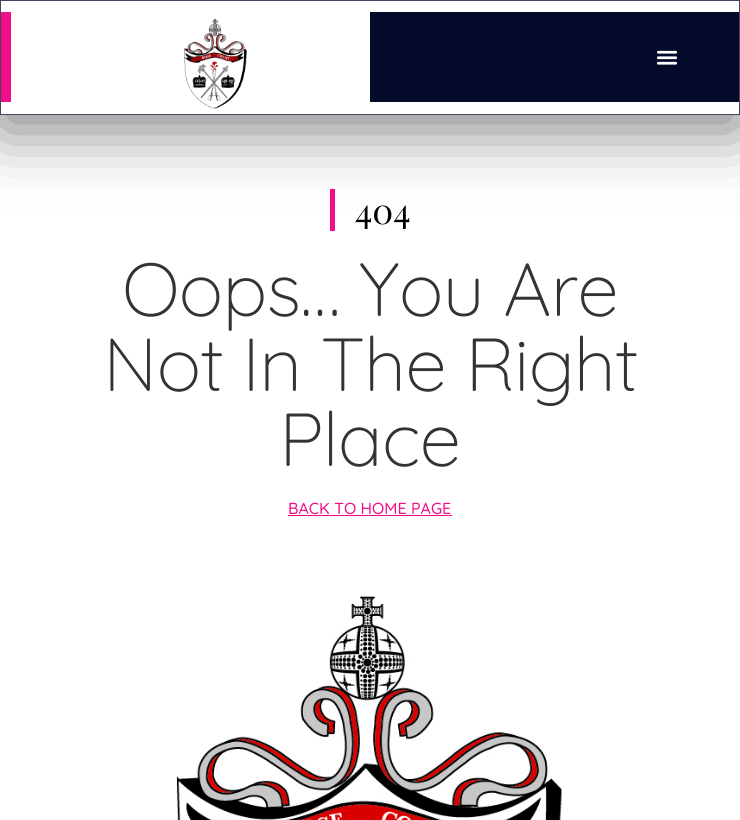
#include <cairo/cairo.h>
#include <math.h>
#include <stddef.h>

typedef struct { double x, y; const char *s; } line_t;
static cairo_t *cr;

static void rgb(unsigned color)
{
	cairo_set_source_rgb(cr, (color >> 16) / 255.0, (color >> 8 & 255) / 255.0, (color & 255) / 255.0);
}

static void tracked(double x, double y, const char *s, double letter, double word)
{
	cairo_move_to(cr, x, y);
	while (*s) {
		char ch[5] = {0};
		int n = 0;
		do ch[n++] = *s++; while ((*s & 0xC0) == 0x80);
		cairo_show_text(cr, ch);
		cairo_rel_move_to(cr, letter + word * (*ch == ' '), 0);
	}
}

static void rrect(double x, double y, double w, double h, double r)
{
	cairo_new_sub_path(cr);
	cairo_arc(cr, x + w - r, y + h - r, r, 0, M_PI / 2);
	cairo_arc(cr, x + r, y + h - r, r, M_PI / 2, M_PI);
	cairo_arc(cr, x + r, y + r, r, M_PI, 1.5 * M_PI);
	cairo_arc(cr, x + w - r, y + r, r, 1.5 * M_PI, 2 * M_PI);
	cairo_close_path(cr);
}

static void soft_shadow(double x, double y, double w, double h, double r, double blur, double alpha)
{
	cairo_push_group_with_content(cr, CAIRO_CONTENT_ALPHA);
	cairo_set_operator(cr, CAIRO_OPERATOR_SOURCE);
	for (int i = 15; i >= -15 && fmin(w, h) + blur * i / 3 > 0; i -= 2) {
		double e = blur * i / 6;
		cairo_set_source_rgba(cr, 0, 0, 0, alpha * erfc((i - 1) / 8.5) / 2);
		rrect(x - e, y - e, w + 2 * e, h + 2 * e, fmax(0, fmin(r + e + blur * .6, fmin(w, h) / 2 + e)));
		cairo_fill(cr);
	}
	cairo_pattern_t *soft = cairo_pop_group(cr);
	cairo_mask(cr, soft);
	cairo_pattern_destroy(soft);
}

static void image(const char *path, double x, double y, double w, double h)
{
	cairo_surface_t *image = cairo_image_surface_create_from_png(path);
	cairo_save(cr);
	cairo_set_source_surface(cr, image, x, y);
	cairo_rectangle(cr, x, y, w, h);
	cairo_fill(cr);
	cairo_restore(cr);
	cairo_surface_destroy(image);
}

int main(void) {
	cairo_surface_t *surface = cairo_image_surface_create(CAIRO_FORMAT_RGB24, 740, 820);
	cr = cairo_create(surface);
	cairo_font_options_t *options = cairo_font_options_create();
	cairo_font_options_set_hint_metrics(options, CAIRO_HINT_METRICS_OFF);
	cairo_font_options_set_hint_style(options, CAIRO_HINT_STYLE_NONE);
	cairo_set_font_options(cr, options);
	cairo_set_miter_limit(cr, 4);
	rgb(0xffffff);
	cairo_paint(cr);
	rgb(0xf10f89);
	cairo_rectangle(cr, 330, 189, 5, 42);
	cairo_fill(cr);
	rgb(0x000000);
	soft_shadow(0, 15, 740, 115, 0, 32.5, 0.5);
	rgb(0xffffff);
	cairo_rectangle(cr, 0.5, 0.5, 739, 114);
	cairo_fill_preserve(cr);
	rgb(0x42475e);
	cairo_set_line_width(cr, 1);
	cairo_stroke(cr);
	rgb(0x040a29);
	cairo_rectangle(cr, 370, 12, 369, 90);
	cairo_fill(cr);
	rgb(0xf10f89);
	cairo_rectangle(cr, 1, 12, 10, 90);
	cairo_fill(cr);
	image("img/1.png", 184, 19, 63, 90);
	image("img/2.png", 656, 50, 22, 15);
	cairo_rectangle(cr, 288, 515, 164, 1);
	cairo_fill(cr);
	image("img/3.png", 176, 596, 386, 224);
	cairo_select_font_face(cr, "Playfair Display", CAIRO_FONT_SLANT_NORMAL, CAIRO_FONT_WEIGHT_NORMAL);
	cairo_set_font_size(cr, 35);
	rgb(0x000000);
	cairo_move_to(cr, 355, 224);
	cairo_show_text(cr, "404");
	cairo_select_font_face(cr, "Quicksand Light", CAIRO_FONT_SLANT_NORMAL, CAIRO_FONT_WEIGHT_NORMAL);
	cairo_set_font_size(cr, 75);
	rgb(0x333333);
	{
		static const line_t items[] = {
			{122, 316, "Oops… You Are"},
			{103, 391, "Not In The Right"},
			{279, 466, "Place"},
		};
		for (size_t i = 0; i < sizeof items / sizeof *items; i++) {
			tracked(items[i].x, items[i].y, items[i].s, -1, 0);
		}
	}
	cairo_select_font_face(cr, "Quicksand Medium", CAIRO_FONT_SLANT_NORMAL, CAIRO_FONT_WEIGHT_NORMAL);
	cairo_set_font_size(cr, 16);
	rgb(0xf10f89);
	cairo_move_to(cr, 288, 514);
	cairo_show_text(cr, "BACK TO HOME PAGE");
	cairo_surface_write_to_png(surface, "page.png");
	cairo_font_options_destroy(options);
	cairo_destroy(cr);
	cairo_surface_destroy(surface);
	return 0;
}
